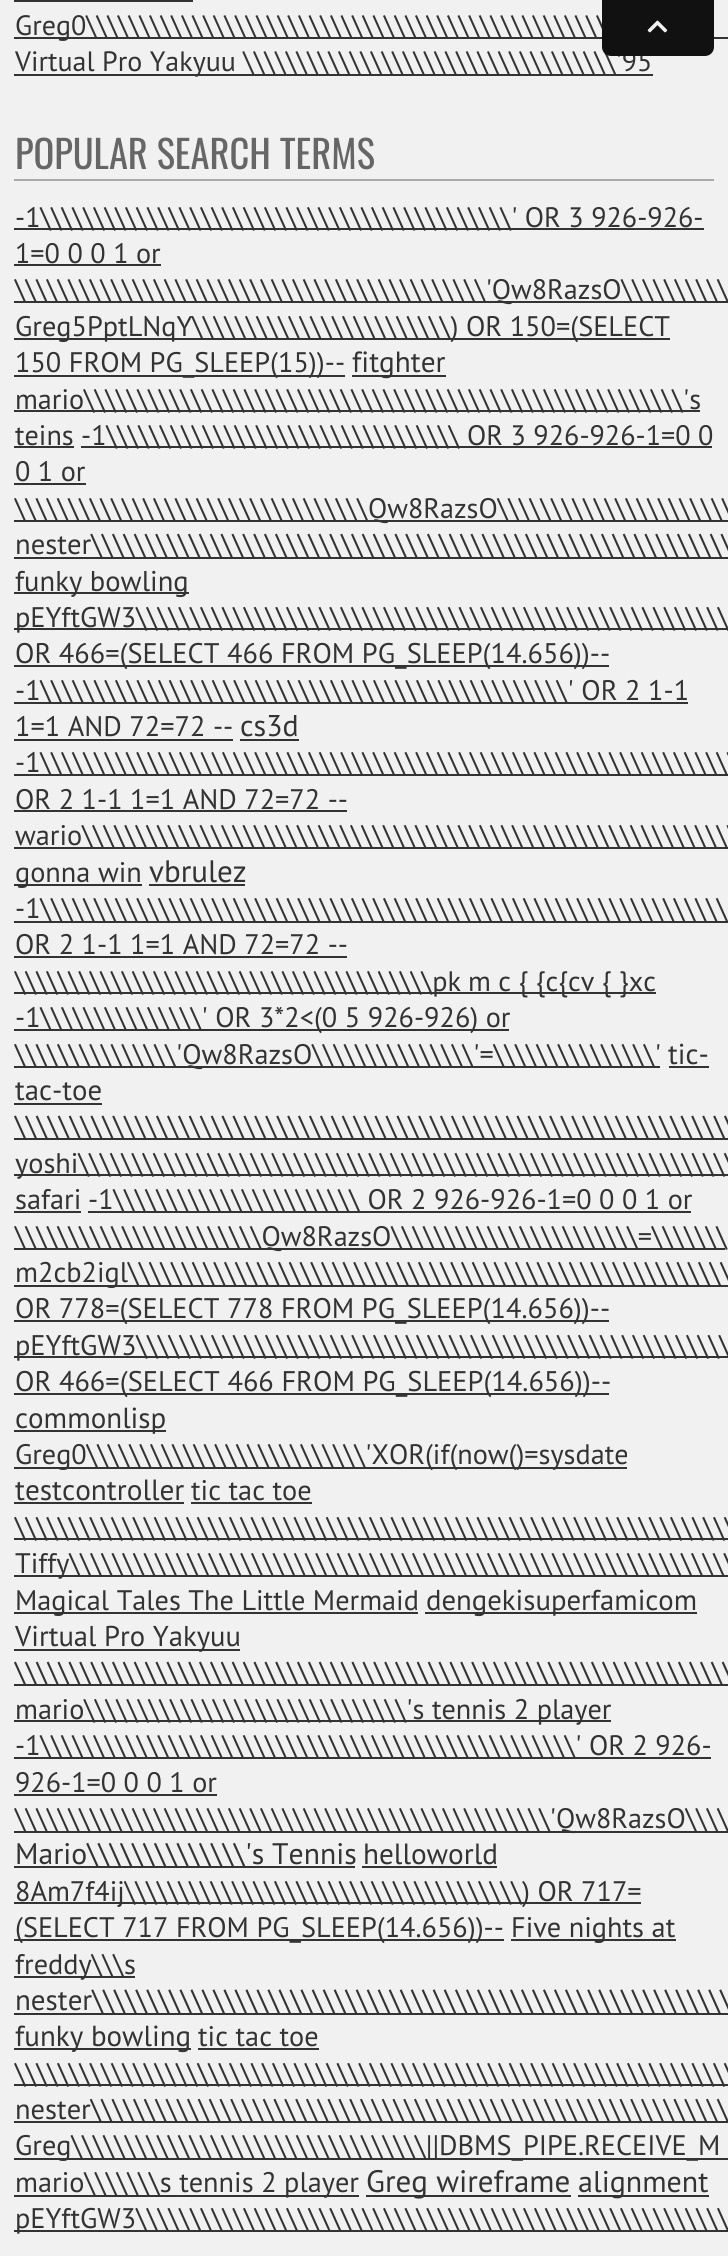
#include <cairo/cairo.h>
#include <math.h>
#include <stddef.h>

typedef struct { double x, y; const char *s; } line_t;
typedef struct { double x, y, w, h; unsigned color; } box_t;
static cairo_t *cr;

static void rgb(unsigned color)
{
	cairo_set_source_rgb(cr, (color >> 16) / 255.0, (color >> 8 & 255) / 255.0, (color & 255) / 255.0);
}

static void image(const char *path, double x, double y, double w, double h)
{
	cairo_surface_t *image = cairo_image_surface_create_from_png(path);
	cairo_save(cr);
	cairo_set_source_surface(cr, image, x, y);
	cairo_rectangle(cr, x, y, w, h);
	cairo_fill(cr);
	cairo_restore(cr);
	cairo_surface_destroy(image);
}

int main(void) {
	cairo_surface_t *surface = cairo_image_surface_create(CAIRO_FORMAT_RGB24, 728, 2256);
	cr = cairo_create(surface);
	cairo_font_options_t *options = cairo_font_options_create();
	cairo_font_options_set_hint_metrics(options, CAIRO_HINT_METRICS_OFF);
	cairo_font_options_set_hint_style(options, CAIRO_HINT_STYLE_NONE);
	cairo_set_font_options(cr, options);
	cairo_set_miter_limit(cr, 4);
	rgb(0xf1f1f1);
	cairo_paint(cr);
	{
		static const box_t items[] = {
			{14, 0, 179, 2, 0x333333},
			{14, 37, 714, 2, 0x333333},
			{14, 74, 639, 2, 0x333333},
			{14, 179, 700, 2, 0xaaaaaa},
			{14, 228, 690, 2, 0x333333},
			{14, 264, 147, 2, 0x333333},
			{14, 301, 714, 2, 0x333333},
			{14, 338, 656, 2, 0x333333},
			{14, 375, 331, 2, 0x333333},
			{352, 375, 94, 2, 0x333333},
			{14, 410, 686, 2, 0x333333},
			{14, 446, 60, 2, 0x333333},
			{81, 446, 631, 2, 0x333333},
			{14, 483, 72, 2, 0x333333},
			{14, 520, 714, 2, 0x333333},
			{14, 557, 714, 2, 0x333333},
			{14, 592, 175, 2, 0x333333},
			{14, 628, 714, 2, 0x333333},
			{14, 665, 595, 2, 0x333333},
			{14, 702, 674, 2, 0x333333},
			{14, 739, 219, 2, 0x333333},
			{240, 739, 59, 2, 0x333333},
			{14, 774, 714, 2, 0x333333},
			{14, 810, 333, 2, 0x333333},
			{14, 847, 714, 2, 0x333333},
			{14, 884, 128, 2, 0x333333},
			{149, 884, 96, 2, 0x333333},
			{14, 921, 714, 2, 0x333333},
			{14, 956, 333, 2, 0x333333},
			{14, 992, 642, 2, 0x333333},
			{14, 1029, 495, 2, 0x333333},
			{14, 1066, 646, 2, 0x333333},
			{669, 1066, 40, 2, 0x333333},
			{14, 1103, 88, 2, 0x333333},
			{14, 1138, 714, 2, 0x333333},
			{14, 1174, 714, 2, 0x333333},
			{14, 1211, 67, 2, 0x333333},
			{88, 1211, 603, 2, 0x333333},
			{14, 1248, 711, 2, 0x333333},
			{14, 1285, 714, 2, 0x333333},
			{14, 1320, 595, 2, 0x333333},
			{14, 1356, 714, 2, 0x333333},
			{14, 1393, 595, 2, 0x333333},
			{14, 1430, 152, 2, 0x333333},
			{14, 1467, 613, 2, 0x333333},
			{14, 1502, 170, 2, 0x333333},
			{191, 1502, 121, 2, 0x333333},
			{14, 1538, 714, 2, 0x333333},
			{14, 1575, 714, 2, 0x333333},
			{14, 1612, 404, 2, 0x333333},
			{425, 1612, 272, 2, 0x333333},
			{14, 1649, 226, 2, 0x333333},
			{14, 1684, 714, 2, 0x333333},
			{14, 1720, 597, 2, 0x333333},
			{14, 1757, 697, 2, 0x333333},
			{14, 1794, 203, 2, 0x333333},
			{14, 1831, 714, 2, 0x333333},
			{14, 1866, 341, 2, 0x333333},
			{362, 1866, 135, 2, 0x333333},
			{14, 1902, 627, 2, 0x333333},
			{14, 1939, 490, 2, 0x333333},
			{511, 1939, 165, 2, 0x333333},
			{14, 1976, 121, 2, 0x333333},
			{14, 2013, 714, 2, 0x333333},
			{14, 2048, 177, 2, 0x333333},
			{198, 2048, 121, 2, 0x333333},
			{14, 2084, 714, 2, 0x333333},
			{14, 2121, 714, 2, 0x333333},
			{14, 2158, 714, 2, 0x333333},
			{14, 2195, 345, 2, 0x333333},
			{366, 2195, 205, 2, 0x333333},
			{578, 2195, 131, 2, 0x333333},
			{14, 2230, 714, 2, 0x333333},
		};
		for (size_t i = 0; i < sizeof items / sizeof *items; i++) {
			rgb(items[i].color);
			cairo_rectangle(cr, items[i].x, items[i].y, items[i].w, items[i].h);
			cairo_fill(cr);
		}
	}
	cairo_select_font_face(cr, "PT Sans", CAIRO_FONT_SLANT_NORMAL, CAIRO_FONT_WEIGHT_NORMAL);
	cairo_set_font_size(cr, 28);
	cairo_move_to(cr, 15, 35);
	cairo_show_text(cr, "Greg0\\\\\\\\\\\\\\\\\\\\\\\\\\\\\\\\\\\\\\\\\\\\\\\\\\\\\\\\\\\\\\\\\\\\\\\\\\\\\\\\\\\\\\\\\\\\\\\\\\");
	cairo_move_to(cr, 15, 71);
	cairo_show_text(cr, "Virtual Pro Yakyuu \\\\\\\\\\\\\\\\\\\\\\\\\\\\\\\\\\\\\\\\\\\\\\\\\\\\\\\\\\\\\\\\\\\\\\'95");
	rgb(0x111111);
	cairo_new_path(cr);
	cairo_move_to(cr, 602, 0);
	cairo_line_to(cr, 714, 0);
	cairo_line_to(cr, 714, 47);
	cairo_curve_to(cr, 714, 52, 710, 56, 705, 56);
	cairo_line_to(cr, 611, 56);
	cairo_curve_to(cr, 606, 56, 602, 52, 602, 47);
	cairo_close_path(cr);
	cairo_fill(cr);
	image("img/1.png", 647, 20, 21, 13);
	cairo_select_font_face(cr, "Oswald", CAIRO_FONT_SLANT_NORMAL, CAIRO_FONT_WEIGHT_NORMAL);
	cairo_set_font_size(cr, 38.5);
	rgb(0x666666);
	cairo_move_to(cr, 15, 169);
	cairo_show_text(cr, "POPULAR SEARCH TERMS");
	cairo_select_font_face(cr, "PT Sans", CAIRO_FONT_SLANT_NORMAL, CAIRO_FONT_WEIGHT_NORMAL);
	cairo_set_font_size(cr, 28.15);
	rgb(0x333333);
	{
		static const line_t items[] = {
			{15, 227, "-1\\\\\\\\\\\\\\\\\\\\\\\\\\\\\\\\\\\\\\\\\\\\\\\\\\\\\\\\\\\\\\\\\\\\\\\\\\\\\\\\\\\\\\\\' OR 3 926-926-"},
			{15, 263, "1=0 0 0 1 or"},
			{15, 299, "\\\\\\\\\\\\\\\\\\\\\\\\\\\\\\\\\\\\\\\\\\\\\\\\\\\\\\\\\\\\\\\\\\\\\\\\\\\\\\\\\\\\\\\\'Qw8RazsO\\\\\\\\\\\\\\\\\\\\"},
		};
		for (size_t i = 0; i < sizeof items / sizeof *items; i++) {
			cairo_move_to(cr, items[i].x, items[i].y);
			cairo_show_text(cr, items[i].s);
		}
	}
	cairo_set_font_size(cr, 28.3);
	cairo_move_to(cr, 15, 336);
	cairo_show_text(cr, "Greg5PptLNqY\\\\\\\\\\\\\\\\\\\\\\\\\\\\\\\\\\\\\\\\\\\\\\\\) OR 150=(SELECT");
	cairo_move_to(cr, 15, 372);
	cairo_show_text(cr, "150 FROM PG_SLEEP(15))--");
	cairo_set_font_size(cr, 29.25);
	cairo_move_to(cr, 352, 372);
	cairo_show_text(cr, "fitghter");
	cairo_set_font_size(cr, 28.15);
	{
		static const line_t items[] = {
			{15, 409, "mario\\\\\\\\\\\\\\\\\\\\\\\\\\\\\\\\\\\\\\\\\\\\\\\\\\\\\\\\\\\\\\\\\\\\\\\\\\\\\\\\\\\\\\\\\\\\\\\\\\\\\\\\\\\\\\\\'s"},
			{15, 445, "teins"},
			{81, 445, "-1\\\\\\\\\\\\\\\\\\\\\\\\\\\\\\\\\\\\\\\\\\\\\\\\\\\\\\\\\\\\\\\\\\ OR 3 926-926-1=0 0"},
			{15, 481, "0 1 or"},
			{15, 518, "\\\\\\\\\\\\\\\\\\\\\\\\\\\\\\\\\\\\\\\\\\\\\\\\\\\\\\\\\\\\\\\\\\Qw8RazsO\\\\\\\\\\\\\\\\\\\\\\\\\\\\\\\\\\\\\\\\\\\\"},
		};
		for (size_t i = 0; i < sizeof items / sizeof *items; i++) {
			cairo_move_to(cr, items[i].x, items[i].y);
			cairo_show_text(cr, items[i].s);
		}
	}
	cairo_set_font_size(cr, 28.6);
	cairo_move_to(cr, 15, 554);
	cairo_show_text(cr, "nester\\\\\\\\\\\\\\\\\\\\\\\\\\\\\\\\\\\\\\\\\\\\\\\\\\\\\\\\\\\\\\\\\\\\\\\\\\\\\\\\\\\\\\\\\\\\\\\\\\\\\\\\\\\\\\\\\\\\\\");
	cairo_move_to(cr, 15, 591);
	cairo_show_text(cr, "funky bowling");
	cairo_set_font_size(cr, 28.35);
	cairo_move_to(cr, 15, 627);
	cairo_show_text(cr, "pEYftGW3\\\\\\\\\\\\\\\\\\\\\\\\\\\\\\\\\\\\\\\\\\\\\\\\\\\\\\\\\\\\\\\\\\\\\\\\\\\\\\\\\\\\\\\\\\\\\\\\\\\\\\\\\\\\\\");
	cairo_move_to(cr, 15, 663);
	cairo_show_text(cr, "OR 466=(SELECT 466 FROM PG_SLEEP(14.656))--");
	cairo_set_font_size(cr, 28.3);
	cairo_move_to(cr, 15, 700);
	cairo_show_text(cr, "-1\\\\\\\\\\\\\\\\\\\\\\\\\\\\\\\\\\\\\\\\\\\\\\\\\\\\\\\\\\\\\\\\\\\\\\\\\\\\\\\\\\\\\\\\\\\\\\\\\\' OR 2 1-1");
	cairo_move_to(cr, 15, 736);
	cairo_show_text(cr, "1=1 AND 72=72 --");
	cairo_set_font_size(cr, 30);
	cairo_move_to(cr, 240, 736);
	cairo_show_text(cr, "cs3d");
	cairo_set_font_size(cr, 28.25);
	cairo_move_to(cr, 15, 772);
	cairo_show_text(cr, "-1\\\\\\\\\\\\\\\\\\\\\\\\\\\\\\\\\\\\\\\\\\\\\\\\\\\\\\\\\\\\\\\\\\\\\\\\\\\\\\\\\\\\\\\\\\\\\\\\\\\\\\\\\\\\\\\\\\\\\\\\\\\\\\\\\\");
	cairo_move_to(cr, 15, 809);
	cairo_show_text(cr, "OR 2 1-1 1=1 AND 72=72 --");
	cairo_set_font_size(cr, 28.3);
	cairo_move_to(cr, 15, 845);
	cairo_show_text(cr, "wario\\\\\\\\\\\\\\\\\\\\\\\\\\\\\\\\\\\\\\\\\\\\\\\\\\\\\\\\\\\\\\\\\\\\\\\\\\\\\\\\\\\\\\\\\\\\\\\\\\\\\\\\\\\\\\\\\\\\\\\\\\");
	cairo_move_to(cr, 15, 882);
	cairo_show_text(cr, "gonna win");
	cairo_set_font_size(cr, 31);
	cairo_move_to(cr, 149, 882);
	cairo_show_text(cr, "vbrulez");
	cairo_set_font_size(cr, 28.25);
	cairo_move_to(cr, 15, 918);
	cairo_show_text(cr, "-1\\\\\\\\\\\\\\\\\\\\\\\\\\\\\\\\\\\\\\\\\\\\\\\\\\\\\\\\\\\\\\\\\\\\\\\\\\\\\\\\\\\\\\\\\\\\\\\\\\\\\\\\\\\\\\\\\\\\\\\\\\\\\\\\");
	cairo_move_to(cr, 15, 954);
	cairo_show_text(cr, "OR 2 1-1 1=1 AND 72=72 --");
	cairo_set_font_size(cr, 28.15);
	cairo_move_to(cr, 15, 991);
	cairo_show_text(cr, "\\\\\\\\\\\\\\\\\\\\\\\\\\\\\\\\\\\\\\\\\\\\\\\\\\\\\\\\\\\\\\\\\\\\\\\\\\\\\\pk");
	cairo_move_to(cr, 468, 991);
	cairo_show_text(cr, "m c { {c{cv { }xc");
	cairo_set_font_size(cr, 28.25);
	cairo_move_to(cr, 15, 1027);
	cairo_show_text(cr, "-1\\\\\\\\\\\\\\\\\\\\\\\\\\\\\\' OR 3*2<(0 5 926-926) or");
	cairo_move_to(cr, 15, 1064);
	cairo_show_text(cr, "\\\\\\\\\\\\\\\\\\\\\\\\\\\\\\'Qw8RazsO\\\\\\\\\\\\\\\\\\\\\\\\\\\\\\'=\\\\\\\\\\\\\\\\\\\\\\\\\\\\\\'");
	cairo_set_font_size(cr, 28.75);
	{
		static const line_t items[] = {
			{668, 1064, "tic-"},
			{15, 1100, "tac-toe"},
			{15, 1136, "\\\\\\\\\\\\\\\\\\\\\\\\\\\\\\\\\\\\\\\\\\\\\\\\\\\\\\\\\\\\\\\\\\\\\\\\\\\\\\\\\\\\\\\\\\\\\\\\\\\\\\\\\\\\\\\\\\\\\\\\\\\\\\\\\\\\"},
		};
		for (size_t i = 0; i < sizeof items / sizeof *items; i++) {
			cairo_move_to(cr, items[i].x, items[i].y);
			cairo_show_text(cr, items[i].s);
		}
	}
	cairo_set_font_size(cr, 28.35);
	cairo_move_to(cr, 15, 1173);
	cairo_show_text(cr, "yoshi\\\\\\\\\\\\\\\\\\\\\\\\\\\\\\\\\\\\\\\\\\\\\\\\\\\\\\\\\\\\\\\\\\\\\\\\\\\\\\\\\\\\\\\\\\\\\\\\\\\\\\\\\\\\\\\\\\\\\\\\\\");
	cairo_move_to(cr, 15, 1209);
	cairo_show_text(cr, "safari");
	cairo_set_font_size(cr, 28.2);
	cairo_move_to(cr, 88, 1209);
	cairo_show_text(cr, "-1\\\\\\\\\\\\\\\\\\\\\\\\\\\\\\\\\\\\\\\\\\\\\\ OR 2 926-926-1=0 0 0 1 or");
	cairo_move_to(cr, 15, 1246);
	cairo_show_text(cr, "\\\\\\\\\\\\\\\\\\\\\\\\\\\\\\\\\\\\\\\\\\\\\\Qw8RazsO\\\\\\\\\\\\\\\\\\\\\\\\\\\\\\\\\\\\\\\\\\\\\\=\\\\\\\\\\\\\\");
	cairo_set_font_size(cr, 28.35);
	cairo_move_to(cr, 15, 1282);
	cairo_show_text(cr, "m2cb2igl\\\\\\\\\\\\\\\\\\\\\\\\\\\\\\\\\\\\\\\\\\\\\\\\\\\\\\\\\\\\\\\\\\\\\\\\\\\\\\\\\\\\\\\\\\\\\\\\\\\\\\\\\\\\\\\\");
	cairo_move_to(cr, 15, 1318);
	cairo_show_text(cr, "OR 778=(SELECT 778 FROM PG_SLEEP(14.656))--");
	cairo_set_font_size(cr, 28.4);
	cairo_move_to(cr, 15, 1355);
	cairo_show_text(cr, "pEYftGW3\\\\\\\\\\\\\\\\\\\\\\\\\\\\\\\\\\\\\\\\\\\\\\\\\\\\\\\\\\\\\\\\\\\\\\\\\\\\\\\\\\\\\\\\\\\\\\\\\\\\\\\\\\\\\\");
	cairo_move_to(cr, 15, 1391);
	cairo_show_text(cr, "OR 466=(SELECT 466 FROM PG_SLEEP(14.656))--");
	cairo_set_font_size(cr, 29);
	cairo_move_to(cr, 15, 1428);
	cairo_show_text(cr, "commonlisp");
	cairo_set_font_size(cr, 28.2);
	cairo_move_to(cr, 15, 1464);
	cairo_show_text(cr, "Greg0\\\\\\\\\\\\\\\\\\\\\\\\\\\\\\\\\\\\\\\\\\\\\\\\\\\\'XOR(if(now()=sysdate");
	cairo_set_font_size(cr, 29.25);
	cairo_move_to(cr, 15, 1500);
	cairo_show_text(cr, "testcontroller");
	cairo_set_font_size(cr, 28.3);
	cairo_move_to(cr, 191, 1500);
	cairo_show_text(cr, "tic tac toe");
	cairo_move_to(cr, 15, 1537);
	cairo_show_text(cr, "\\\\\\\\\\\\\\\\\\\\\\\\\\\\\\\\\\\\\\\\\\\\\\\\\\\\\\\\\\\\\\\\\\\\\\\\\\\\\\\\\\\\\\\\\\\\\\\\\\\\\\\\\\\\\\\\\\\\\\\\\\\\\\\\\\\\\\");
	cairo_set_font_size(cr, 28.25);
	cairo_move_to(cr, 15, 1573);
	cairo_show_text(cr, "Tiffy\\\\\\\\\\\\\\\\\\\\\\\\\\\\\\\\\\\\\\\\\\\\\\\\\\\\\\\\\\\\\\\\\\\\\\\\\\\\\\\\\\\\\\\\\\\\\\\\\\\\\\\\\\\\\\\\\\\\\\\\\\\\");
	cairo_move_to(cr, 15, 1610);
	cairo_show_text(cr, "Magical Tales The Little Mermaid");
	cairo_set_font_size(cr, 28.75);
	cairo_move_to(cr, 426, 1610);
	cairo_show_text(cr, "dengekisuperfamicom");
	cairo_set_font_size(cr, 28.65);
	cairo_move_to(cr, 15, 1646);
	cairo_show_text(cr, "Virtual Pro Yakyuu");
	cairo_move_to(cr, 15, 1682);
	cairo_show_text(cr, "\\\\\\\\\\\\\\\\\\\\\\\\\\\\\\\\\\\\\\\\\\\\\\\\\\\\\\\\\\\\\\\\\\\\\\\\\\\\\\\\\\\\\\\\\\\\\\\\\\\\\\\\\\\\\\\\\\\\\\\\\\\\\\\\\\\\");
	cairo_set_font_size(cr, 28.25);
	cairo_move_to(cr, 15, 1719);
	cairo_show_text(cr, "mario\\\\\\\\\\\\\\\\\\\\\\\\\\\\\\\\\\\\\\\\\\\\\\\\\\\\\\\\\\\\'s tennis 2 player");
	cairo_set_font_size(cr, 28.15);
	{
		static const line_t items[] = {
			{15, 1755, "-1\\\\\\\\\\\\\\\\\\\\\\\\\\\\\\\\\\\\\\\\\\\\\\\\\\\\\\\\\\\\\\\\\\\\\\\\\\\\\\\\\\\\\\\\\\\\\\\\\\\\' OR 2 926-"},
			{15, 1792, "926-1=0 0 0 1 or"},
			{15, 1828, "\\\\\\\\\\\\\\\\\\\\\\\\\\\\\\\\\\\\\\\\\\\\\\\\\\\\\\\\\\\\\\\\\\\\\\\\\\\\\\\\\\\\\\\\\\\\\\\\\\\\'Qw8RazsO\\\\\\\\"},
		};
		for (size_t i = 0; i < sizeof items / sizeof *items; i++) {
			cairo_move_to(cr, items[i].x, items[i].y);
			cairo_show_text(cr, items[i].s);
		}
	}
	cairo_set_font_size(cr, 29.7);
	cairo_move_to(cr, 15, 1864);
	cairo_show_text(cr, "Mario\\\\\\\\\\\\\\\\\\\\\\\\\\\\'s Tennis");
	cairo_set_font_size(cr, 29.25);
	cairo_move_to(cr, 363, 1864);
	cairo_show_text(cr, "helloworld");
	cairo_set_font_size(cr, 28.25);
	cairo_move_to(cr, 15, 1901);
	cairo_show_text(cr, "8Am7f4ij\\\\\\\\\\\\\\\\\\\\\\\\\\\\\\\\\\\\\\\\\\\\\\\\\\\\\\\\\\\\\\\\\\\\\\\\\\) OR 717=");
	cairo_move_to(cr, 15, 1937);
	cairo_show_text(cr, "(SELECT 717 FROM PG_SLEEP(14.656))--");
	cairo_set_font_size(cr, 28.3);
	cairo_move_to(cr, 511, 1937);
	cairo_show_text(cr, "Five nights at");
	cairo_move_to(cr, 15, 1974);
	cairo_show_text(cr, "freddy\\\\\\s");
	cairo_set_font_size(cr, 29);
	cairo_move_to(cr, 15, 2010);
	cairo_show_text(cr, "nester\\\\\\\\\\\\\\\\\\\\\\\\\\\\\\\\\\\\\\\\\\\\\\\\\\\\\\\\\\\\\\\\\\\\\\\\\\\\\\\\\\\\\\\\\\\\\\\\\\\\\\\\\\\\\\\\\\\\");
	cairo_move_to(cr, 15, 2046);
	cairo_show_text(cr, "funky bowling");
	cairo_set_font_size(cr, 28.3);
	cairo_move_to(cr, 198, 2046);
	cairo_show_text(cr, "tic tac toe");
	cairo_move_to(cr, 15, 2083);
	cairo_show_text(cr, "\\\\\\\\\\\\\\\\\\\\\\\\\\\\\\\\\\\\\\\\\\\\\\\\\\\\\\\\\\\\\\\\\\\\\\\\\\\\\\\\\\\\\\\\\\\\\\\\\\\\\\\\\\\\\\\\\\\\\\\\\\\\\\\\\\\\\\");
	cairo_set_font_size(cr, 28.45);
	cairo_move_to(cr, 15, 2119);
	cairo_show_text(cr, "nester\\\\\\\\\\\\\\\\\\\\\\\\\\\\\\\\\\\\\\\\\\\\\\\\\\\\\\\\\\\\\\\\\\\\\\\\\\\\\\\\\\\\\\\\\\\\\\\\\\\\\\\\\\\\\\\\\\\\\\");
	cairo_set_font_size(cr, 28.25);
	cairo_move_to(cr, 15, 2155);
	cairo_show_text(cr, "Greg\\\\\\\\\\\\\\\\\\\\\\\\\\\\\\\\\\\\\\\\\\\\\\\\\\\\\\\\\\\\\\\\\\||DBMS_PIPE.RECEIVE_M");
	cairo_set_font_size(cr, 28.3);
	cairo_move_to(cr, 15, 2192);
	cairo_show_text(cr, "mario\\\\\\\\\\\\\\s tennis 2 player");
	cairo_set_font_size(cr, 31);
	cairo_move_to(cr, 366, 2192);
	cairo_show_text(cr, "Greg wireframe");
	cairo_set_font_size(cr, 30);
	cairo_move_to(cr, 578, 2192);
	cairo_show_text(cr, "alignment");
	cairo_set_font_size(cr, 28.35);
	cairo_move_to(cr, 15, 2228);
	cairo_show_text(cr, "pEYftGW3\\\\\\\\\\\\\\\\\\\\\\\\\\\\\\\\\\\\\\\\\\\\\\\\\\\\\\\\\\\\\\\\\\\\\\\\\\\\\\\\\\\\\\\\\\\\\\\\\\\\\\\\\\\\\\");
	cairo_surface_write_to_png(surface, "page.png");
	cairo_font_options_destroy(options);
	cairo_destroy(cr);
	cairo_surface_destroy(surface);
	return 0;
}
